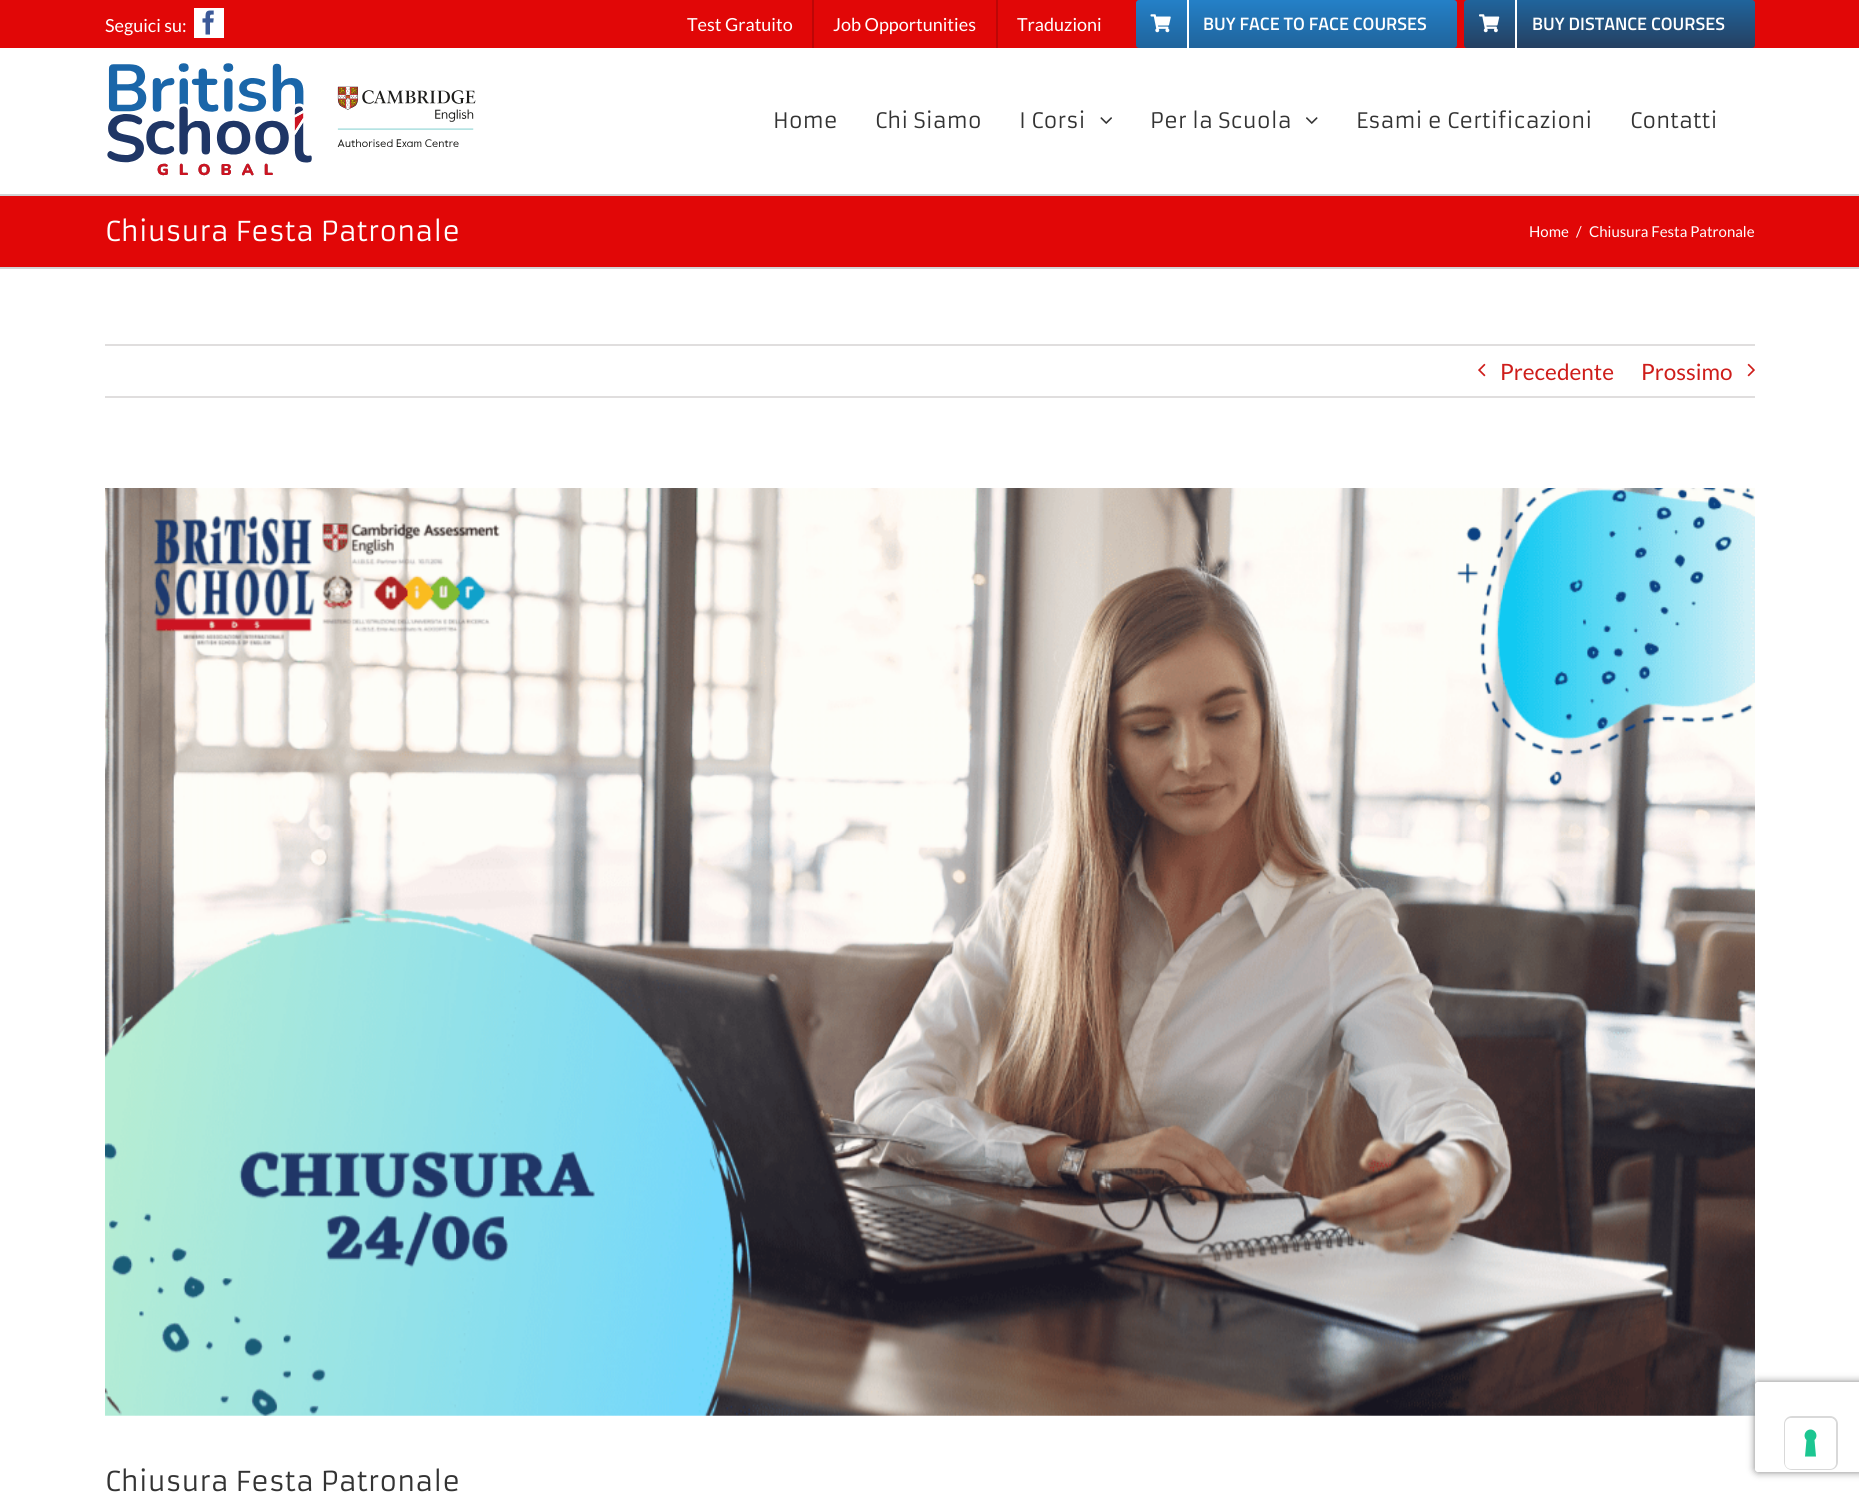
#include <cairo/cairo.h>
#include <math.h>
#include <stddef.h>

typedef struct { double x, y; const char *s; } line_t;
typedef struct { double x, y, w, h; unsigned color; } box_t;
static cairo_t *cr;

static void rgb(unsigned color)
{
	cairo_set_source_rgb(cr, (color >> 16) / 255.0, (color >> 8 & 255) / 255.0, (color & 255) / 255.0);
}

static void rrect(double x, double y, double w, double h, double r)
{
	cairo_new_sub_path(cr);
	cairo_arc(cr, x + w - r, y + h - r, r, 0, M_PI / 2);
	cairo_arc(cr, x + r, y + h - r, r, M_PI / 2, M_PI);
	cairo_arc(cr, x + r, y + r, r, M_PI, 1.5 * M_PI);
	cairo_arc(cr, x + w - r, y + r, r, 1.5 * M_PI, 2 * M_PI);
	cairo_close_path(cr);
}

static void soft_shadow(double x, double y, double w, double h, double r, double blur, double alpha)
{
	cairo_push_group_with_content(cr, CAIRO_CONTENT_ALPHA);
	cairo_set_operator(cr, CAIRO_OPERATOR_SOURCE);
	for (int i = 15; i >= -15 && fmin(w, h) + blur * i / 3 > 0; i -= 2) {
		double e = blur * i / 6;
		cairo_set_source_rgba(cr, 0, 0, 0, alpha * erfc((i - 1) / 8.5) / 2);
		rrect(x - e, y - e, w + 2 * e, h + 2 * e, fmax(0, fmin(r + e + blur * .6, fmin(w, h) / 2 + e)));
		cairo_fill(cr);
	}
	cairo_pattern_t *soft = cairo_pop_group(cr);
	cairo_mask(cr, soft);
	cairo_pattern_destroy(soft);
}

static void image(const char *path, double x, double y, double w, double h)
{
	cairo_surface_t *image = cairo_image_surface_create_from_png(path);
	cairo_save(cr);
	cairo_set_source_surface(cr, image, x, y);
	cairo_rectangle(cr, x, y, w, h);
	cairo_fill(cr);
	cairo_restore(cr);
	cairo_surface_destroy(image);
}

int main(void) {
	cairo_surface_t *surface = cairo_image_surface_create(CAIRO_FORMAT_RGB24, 1859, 1492);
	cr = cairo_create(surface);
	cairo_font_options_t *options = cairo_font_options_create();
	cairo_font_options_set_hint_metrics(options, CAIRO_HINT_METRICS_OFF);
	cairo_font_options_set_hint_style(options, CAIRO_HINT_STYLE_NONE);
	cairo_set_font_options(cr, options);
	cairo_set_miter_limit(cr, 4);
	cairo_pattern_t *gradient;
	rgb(0xffffff);
	cairo_paint(cr);
	rgb(0xe10707);
	cairo_rectangle(cr, 0, 0, 1859, 48);
	cairo_fill(cr);
	rgb(0xffffff);
	cairo_rectangle(cr, 194, 8, 30, 30);
	cairo_fill(cr);
	image("img/1.png", 202, 10, 12, 25);
	rgb(0xbd0606);
	cairo_rectangle(cr, 812, 0, 2, 48);
	cairo_fill(cr);
	cairo_rectangle(cr, 996, 0, 2, 48);
	cairo_fill(cr);
	gradient = cairo_pattern_create_linear(1296, 48, 1296, 0);
	cairo_pattern_add_color_stop_rgba(gradient, 0, 0.125, 0.392, 0.612, 1);
	cairo_pattern_add_color_stop_rgba(gradient, 1, 0.141, 0.502, 0.78, 1);
	cairo_set_source(cr, gradient);
	cairo_pattern_destroy(gradient);
	rrect(1136, 0, 321, 48, 3);
	cairo_fill(cr);
	rgb(0xffffff);
	cairo_rectangle(cr, 1187, 0, 2, 48);
	cairo_fill(cr);
	image("img/2.png", 1150, 14, 21, 19);
	gradient = cairo_pattern_create_linear(1610, 48, 1610, 0);
	cairo_pattern_add_color_stop_rgba(gradient, 0, 0.145, 0.251, 0.38, 1);
	cairo_pattern_add_color_stop_rgba(gradient, 1, 0.125, 0.392, 0.612, 1);
	cairo_set_source(cr, gradient);
	cairo_pattern_destroy(gradient);
	rrect(1464, 0, 291, 48, 3);
	cairo_fill(cr);
	rgb(0xffffff);
	cairo_rectangle(cr, 1515, 0, 2, 48);
	cairo_fill(cr);
	image("img/3.png", 1479, 14, 21, 19);
	image("img/4.png", 107, 63, 369, 113);
	image("img/5.png", 1100, 117, 12, 7);
	image("img/6.png", 1306, 117, 12, 7);
	{
		static const box_t items[] = {
			{0, 196, 1859, 71, 0xe10707},
			{0, 194, 1859, 2, 0xd2d3d4},
			{0, 267, 1859, 2, 0xd2d3d4},
			{105, 344, 1650, 2, 0xe0dede},
			{105, 396, 1650, 2, 0xe0dede},
		};
		for (size_t i = 0; i < sizeof items / sizeof *items; i++) {
			rgb(items[i].color);
			cairo_rectangle(cr, items[i].x, items[i].y, items[i].w, items[i].h);
			cairo_fill(cr);
		}
	}
	image("img/7.png", 1478, 363, 8, 14);
	image("img/8.png", 1747, 363, 8, 14);
	image("img/9.png", 105, 488, 1650, 928);
	cairo_save(cr);
	cairo_set_fill_rule(cr, CAIRO_FILL_RULE_EVEN_ODD);
	cairo_new_path(cr);
	cairo_move_to(cr, 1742, 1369);
	cairo_line_to(cr, 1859, 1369);
	cairo_line_to(cr, 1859, 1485);
	cairo_line_to(cr, 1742, 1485);
	cairo_close_path(cr);
	cairo_move_to(cr, 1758, 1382);
	cairo_line_to(cr, 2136, 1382);
	cairo_curve_to(cr, 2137.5, 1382, 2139, 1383.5, 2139, 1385);
	cairo_line_to(cr, 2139, 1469);
	cairo_curve_to(cr, 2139, 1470.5, 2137.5, 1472, 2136, 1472);
	cairo_line_to(cr, 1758, 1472);
	cairo_curve_to(cr, 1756.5, 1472, 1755, 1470.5, 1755, 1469);
	cairo_line_to(cr, 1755, 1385);
	cairo_curve_to(cr, 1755, 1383.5, 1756.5, 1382, 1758, 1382);
	cairo_close_path(cr);
	cairo_clip(cr);
	rgb(0x808080);
	soft_shadow(1755, 1382, 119, 90, 3, 4, 1);
	cairo_restore(cr);
	rrect(1785, 1417, 52, 52, 7);
	rgb(0xd9d9d9);
	cairo_stroke(cr);
	rgb(0xffffff);
	rrect(1785, 1418, 51, 51, 6);
	cairo_fill(cr);
	rgb(0x1cc691);
	cairo_set_fill_rule(cr, CAIRO_FILL_RULE_EVEN_ODD);
	cairo_new_path(cr);
	cairo_move_to(cr, 1810.5, 1429.5);
	cairo_curve_to(cr, 1816, 1429.5, 1818.5, 1436.5, 1814.5, 1440);
	cairo_line_to(cr, 1816, 1456.5);
	cairo_line_to(cr, 1805, 1456.5);
	cairo_line_to(cr, 1806.5, 1440);
	cairo_curve_to(cr, 1802.5, 1436.5, 1805, 1429.5, 1810.5, 1429.5);
	cairo_close_path(cr);
	cairo_fill(cr);
	cairo_select_font_face(cr, "Lato", CAIRO_FONT_SLANT_NORMAL, CAIRO_FONT_WEIGHT_NORMAL);
	cairo_set_font_size(cr, 18);
	rgb(0xffffff);
	{
		static const line_t items[] = {
			{105, 32, "Seguici su:"},
			{687, 31, "Test Gratuito"},
			{833, 31, "Job Opportunities"},
			{1017, 31, "Traduzioni"},
		};
		for (size_t i = 0; i < sizeof items / sizeof *items; i++) {
			cairo_move_to(cr, items[i].x, items[i].y);
			cairo_show_text(cr, items[i].s);
		}
	}
	cairo_select_font_face(cr, "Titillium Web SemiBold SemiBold", CAIRO_FONT_SLANT_NORMAL, CAIRO_FONT_WEIGHT_NORMAL);
	cairo_move_to(cr, 1203, 30);
	cairo_show_text(cr, "BUY FACE TO FACE COURSES");
	cairo_move_to(cr, 1532, 30);
	cairo_show_text(cr, "BUY DISTANCE COURSES");
	cairo_select_font_face(cr, "Armata", CAIRO_FONT_SLANT_NORMAL, CAIRO_FONT_WEIGHT_NORMAL);
	cairo_set_font_size(cr, 21);
	rgb(0x333333);
	{
		static const line_t items[] = {
			{773, 128, "Home"},
			{875, 128, "Chi Siamo"},
			{1019, 128, "I Corsi"},
			{1150, 128, "Per la Scuola"},
			{1356, 128, "Esami e Certificazioni"},
			{1630, 128, "Contatti"},
		};
		for (size_t i = 0; i < sizeof items / sizeof *items; i++) {
			cairo_move_to(cr, items[i].x, items[i].y);
			cairo_show_text(cr, items[i].s);
		}
	}
	cairo_set_font_size(cr, 27);
	rgb(0xffffff);
	cairo_move_to(cr, 105, 241);
	cairo_show_text(cr, "Chiusura Festa Patronale");
	cairo_select_font_face(cr, "Lato", CAIRO_FONT_SLANT_NORMAL, CAIRO_FONT_WEIGHT_NORMAL);
	cairo_set_font_size(cr, 15);
	{
		static const line_t items[] = {
			{1529, 237, "Home"},
			{1576, 237, "/"},
			{1589, 237, "Chiusura Festa Patronale"},
		};
		for (size_t i = 0; i < sizeof items / sizeof *items; i++) {
			cairo_move_to(cr, items[i].x, items[i].y);
			cairo_show_text(cr, items[i].s);
		}
	}
	cairo_set_font_size(cr, 22.5);
	rgb(0xce1d1a);
	cairo_move_to(cr, 1500, 380);
	cairo_show_text(cr, "Precedente");
	cairo_move_to(cr, 1641, 380);
	cairo_show_text(cr, "Prossimo");
	cairo_select_font_face(cr, "Armata", CAIRO_FONT_SLANT_NORMAL, CAIRO_FONT_WEIGHT_NORMAL);
	cairo_set_font_size(cr, 27);
	rgb(0x333333);
	cairo_move_to(cr, 105, 1491);
	cairo_show_text(cr, "Chiusura Festa Patronale");
	cairo_surface_write_to_png(surface, "page.png");
	cairo_font_options_destroy(options);
	cairo_destroy(cr);
	cairo_surface_destroy(surface);
	return 0;
}
